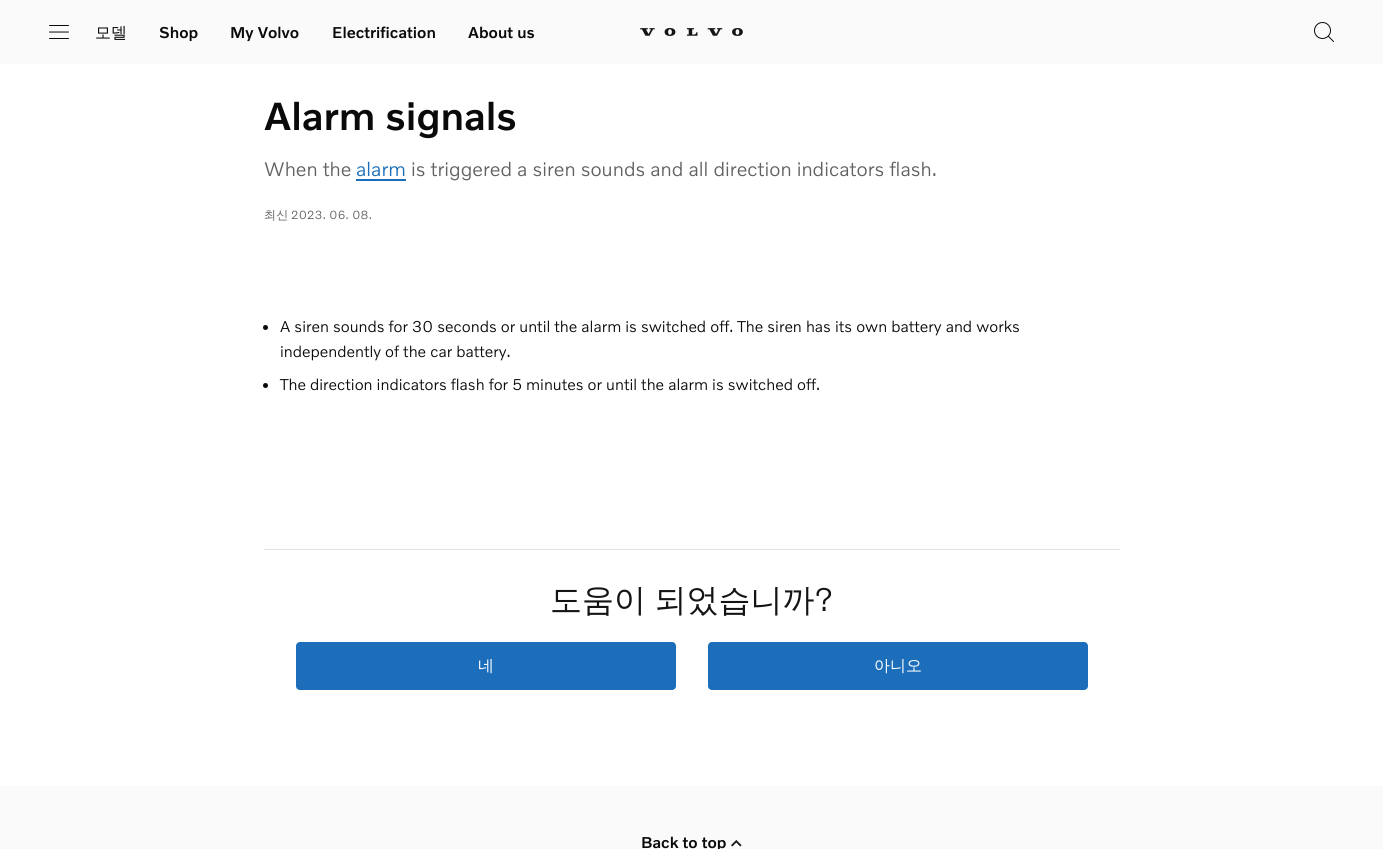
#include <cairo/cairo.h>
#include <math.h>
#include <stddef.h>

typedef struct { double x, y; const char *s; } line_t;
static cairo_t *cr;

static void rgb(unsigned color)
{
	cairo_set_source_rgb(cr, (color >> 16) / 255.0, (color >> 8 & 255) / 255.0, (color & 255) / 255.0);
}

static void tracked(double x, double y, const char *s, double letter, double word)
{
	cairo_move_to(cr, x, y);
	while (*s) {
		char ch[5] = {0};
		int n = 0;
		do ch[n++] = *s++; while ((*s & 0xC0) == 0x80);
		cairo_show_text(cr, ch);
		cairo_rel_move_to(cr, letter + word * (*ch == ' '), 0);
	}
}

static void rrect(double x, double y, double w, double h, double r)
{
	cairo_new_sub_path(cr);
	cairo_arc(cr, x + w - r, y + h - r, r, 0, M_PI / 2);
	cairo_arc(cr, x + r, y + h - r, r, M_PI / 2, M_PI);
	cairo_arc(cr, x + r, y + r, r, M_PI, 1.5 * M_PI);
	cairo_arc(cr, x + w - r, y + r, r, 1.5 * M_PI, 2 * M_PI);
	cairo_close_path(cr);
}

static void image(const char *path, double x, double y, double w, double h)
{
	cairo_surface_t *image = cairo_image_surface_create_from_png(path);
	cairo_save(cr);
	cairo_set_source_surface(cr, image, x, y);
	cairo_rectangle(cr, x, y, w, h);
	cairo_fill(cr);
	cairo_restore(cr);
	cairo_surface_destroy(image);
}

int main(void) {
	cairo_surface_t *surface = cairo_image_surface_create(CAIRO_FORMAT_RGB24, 1398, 849);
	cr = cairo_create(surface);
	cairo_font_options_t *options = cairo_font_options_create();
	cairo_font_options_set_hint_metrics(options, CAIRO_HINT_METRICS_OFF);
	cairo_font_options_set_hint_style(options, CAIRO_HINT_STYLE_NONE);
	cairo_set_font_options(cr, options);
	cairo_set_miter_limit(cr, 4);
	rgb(0xffffff);
	cairo_paint(cr);
	rgb(0xfafafa);
	cairo_rectangle(cr, 0, 0, 1383, 64);
	cairo_fill(cr);
	image("img/1.png", 49, 25, 20, 14);
	image("img/2.png", 640, 28, 103, 8);
	image("img/3.png", 1314, 22, 20, 20);
	rgb(0x1c6eba);
	cairo_rectangle(cr, 356, 179, 50, 2);
	cairo_fill(cr);
	rgb(0x0a0a0a);
	cairo_arc(cr, 265.5, 327.5, 2.5, 0, 2 * M_PI);
	cairo_fill(cr);
	cairo_arc(cr, 265.5, 385.5, 2.5, 0, 2 * M_PI);
	cairo_fill(cr);
	rgb(0xe0e0e0);
	cairo_rectangle(cr, 264, 549, 856, 1);
	cairo_fill(cr);
	rgb(0x1c6eba);
	rrect(296, 642, 380, 48, 4);
	cairo_fill(cr);
	rrect(708, 642, 380, 48, 4);
	cairo_fill(cr);
	rgb(0xfafafa);
	cairo_rectangle(cr, 0, 786, 1383, 63);
	cairo_fill(cr);
	image("img/4.png", 731, 840, 11, 7);
	cairo_select_font_face(cr, "WenQuanYi Zen Hei Medium", CAIRO_FONT_SLANT_NORMAL, CAIRO_FONT_WEIGHT_NORMAL);
	cairo_set_font_size(cr, 16);
	rgb(0x0a0a0a);
	cairo_move_to(cr, 95, 38);
	cairo_show_text(cr, "모델");
	cairo_select_font_face(cr, "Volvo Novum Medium", CAIRO_FONT_SLANT_NORMAL, CAIRO_FONT_WEIGHT_NORMAL);
	{
		static const line_t items[] = {
			{159, 38, "Shop"},
			{230, 38, "My Volvo"},
			{332, 38, "Electrification"},
			{468, 38, "About us"},
		};
		for (size_t i = 0; i < sizeof items / sizeof *items; i++) {
			cairo_move_to(cr, items[i].x, items[i].y);
			cairo_show_text(cr, items[i].s);
		}
	}
	cairo_set_font_size(cr, 40);
	cairo_move_to(cr, 264, 130);
	cairo_show_text(cr, "Alarm signals");
	cairo_select_font_face(cr, "Volvo Novum Light", CAIRO_FONT_SLANT_NORMAL, CAIRO_FONT_WEIGHT_NORMAL);
	cairo_set_font_size(cr, 20);
	rgb(0x616161);
	cairo_move_to(cr, 264, 176);
	cairo_show_text(cr, "When the");
	rgb(0x1c6eba);
	cairo_move_to(cr, 356, 176);
	cairo_show_text(cr, "alarm");
	rgb(0x616161);
	cairo_move_to(cr, 411, 176);
	cairo_show_text(cr, "is triggered a siren sounds and all direction indicators flash.");
	cairo_select_font_face(cr, "WenQuanYi Zen Hei Medium", CAIRO_FONT_SLANT_NORMAL, CAIRO_FONT_WEIGHT_NORMAL);
	cairo_set_font_size(cr, 12);
	tracked(264, 219, "최신", 0.25, 0);
	cairo_select_font_face(cr, "Volvo Novum Light", CAIRO_FONT_SLANT_NORMAL, CAIRO_FONT_WEIGHT_NORMAL);
	tracked(291, 219, "2023. 06. 08.", 0.25, 0);
	cairo_set_font_size(cr, 16);
	rgb(0x0a0a0a);
	{
		static const line_t items[] = {
			{280, 332, "A siren sounds for 30 seconds or until the alarm is switched off. The siren has its own battery and works"},
			{280, 357, "independently of the car battery."},
			{280, 390, "The direction indicators flash for 5 minutes or until the alarm is switched off."},
		};
		for (size_t i = 0; i < sizeof items / sizeof *items; i++) {
			cairo_move_to(cr, items[i].x, items[i].y);
			cairo_show_text(cr, items[i].s);
		}
	}
	cairo_select_font_face(cr, "WenQuanYi Zen Hei Medium", CAIRO_FONT_SLANT_NORMAL, CAIRO_FONT_WEIGHT_NORMAL);
	cairo_set_font_size(cr, 32);
	rgb(0x141414);
	tracked(550, 611, "도움이 되었습니까", 0, -1);
	cairo_select_font_face(cr, "Volvo Novum Light", CAIRO_FONT_SLANT_NORMAL, CAIRO_FONT_WEIGHT_NORMAL);
	cairo_move_to(cr, 814, 611);
	cairo_show_text(cr, "?");
	cairo_select_font_face(cr, "WenQuanYi Zen Hei Medium", CAIRO_FONT_SLANT_NORMAL, CAIRO_FONT_WEIGHT_NORMAL);
	cairo_set_font_size(cr, 16);
	rgb(0xffffff);
	cairo_move_to(cr, 478, 671);
	cairo_show_text(cr, "네");
	cairo_move_to(cr, 874, 671);
	cairo_show_text(cr, "아니오");
	cairo_select_font_face(cr, "Volvo Novum Medium", CAIRO_FONT_SLANT_NORMAL, CAIRO_FONT_WEIGHT_NORMAL);
	rgb(0x0a0a0a);
	cairo_move_to(cr, 641, 848);
	cairo_show_text(cr, "Back to top");
	cairo_surface_write_to_png(surface, "page.png");
	cairo_font_options_destroy(options);
	cairo_destroy(cr);
	cairo_surface_destroy(surface);
	return 0;
}
